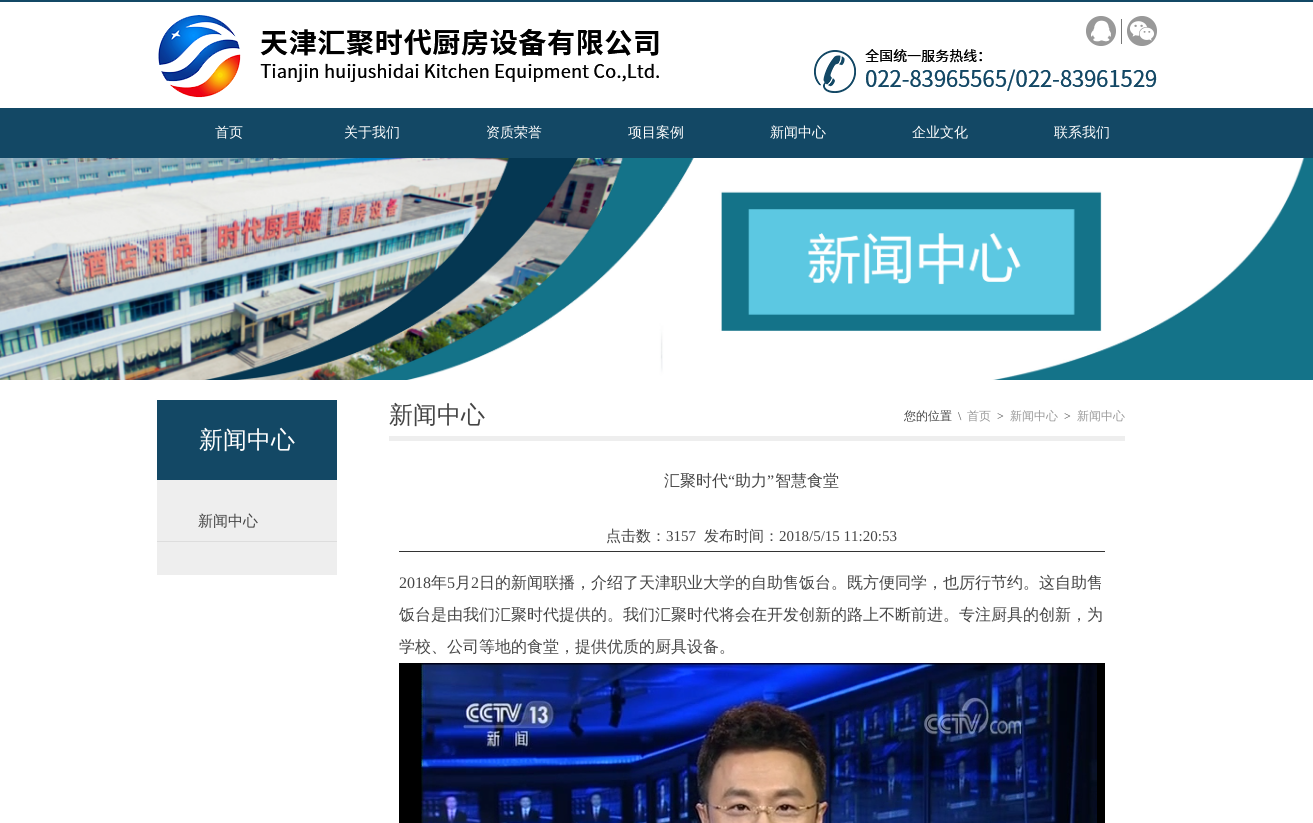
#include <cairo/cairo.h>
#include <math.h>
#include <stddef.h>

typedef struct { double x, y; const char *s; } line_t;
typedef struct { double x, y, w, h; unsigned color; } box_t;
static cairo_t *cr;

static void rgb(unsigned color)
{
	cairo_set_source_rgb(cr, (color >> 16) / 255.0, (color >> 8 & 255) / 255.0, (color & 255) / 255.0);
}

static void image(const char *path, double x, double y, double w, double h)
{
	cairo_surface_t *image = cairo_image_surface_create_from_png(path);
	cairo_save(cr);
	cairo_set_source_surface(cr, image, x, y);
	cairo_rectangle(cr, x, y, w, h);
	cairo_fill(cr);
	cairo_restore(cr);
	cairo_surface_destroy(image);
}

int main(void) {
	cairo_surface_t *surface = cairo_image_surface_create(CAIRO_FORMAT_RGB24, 1313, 823);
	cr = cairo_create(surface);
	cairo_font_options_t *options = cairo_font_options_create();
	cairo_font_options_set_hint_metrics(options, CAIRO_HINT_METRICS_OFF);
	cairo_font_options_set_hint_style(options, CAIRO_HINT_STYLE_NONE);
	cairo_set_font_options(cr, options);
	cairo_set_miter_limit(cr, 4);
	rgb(0xffffff);
	cairo_paint(cr);
	rgb(0x134865);
	cairo_rectangle(cr, 0, 0, 1313, 2);
	cairo_fill(cr);
	image("img/1.png", 158, 15, 501, 83);
	image("img/2.png", 1086, 16, 30, 30);
	rgb(0x777777);
	cairo_rectangle(cr, 1121, 19, 1, 25);
	cairo_fill(cr);
	image("img/3.png", 1127, 16, 30, 30);
	image("img/4.png", 814, 49, 343, 44);
	rgb(0x134865);
	cairo_rectangle(cr, 0, 108, 1313, 50);
	cairo_fill(cr);
	image("img/5.png", 0, 158, 1313, 222);
	{
		static const box_t items[] = {
			{157, 480, 180, 95, 0xeeeeee},
			{157, 400, 180, 80, 0x134865},
			{157, 541, 180, 1, 0xdddddd},
			{389, 436, 736, 5, 0xeeeeee},
			{399, 551, 706, 1, 0x333333},
		};
		for (size_t i = 0; i < sizeof items / sizeof *items; i++) {
			rgb(items[i].color);
			cairo_rectangle(cr, items[i].x, items[i].y, items[i].w, items[i].h);
			cairo_fill(cr);
		}
	}
	image("img/6.png", 399, 663, 706, 160);
	cairo_select_font_face(cr, "WenQuanYi Zen Hei Medium", CAIRO_FONT_SLANT_NORMAL, CAIRO_FONT_WEIGHT_NORMAL);
	cairo_set_font_size(cr, 14);
	rgb(0xffffff);
	{
		static const line_t items[] = {
			{215, 137, "首页"},
			{344, 137, "关于我们"},
			{486, 137, "资质荣誉"},
			{628, 137, "项目案例"},
			{770, 137, "新闻中心"},
			{912, 137, "企业文化"},
			{1054, 137, "联系我们"},
		};
		for (size_t i = 0; i < sizeof items / sizeof *items; i++) {
			cairo_move_to(cr, items[i].x, items[i].y);
			cairo_show_text(cr, items[i].s);
		}
	}
	cairo_set_font_size(cr, 24);
	cairo_move_to(cr, 199, 448);
	cairo_show_text(cr, "新闻中心");
	cairo_set_font_size(cr, 15);
	rgb(0x444444);
	cairo_move_to(cr, 198, 526);
	cairo_show_text(cr, "新闻中心");
	cairo_set_font_size(cr, 24);
	cairo_move_to(cr, 389, 423);
	cairo_show_text(cr, "新闻中心");
	cairo_set_font_size(cr, 12);
	cairo_move_to(cr, 904, 420);
	cairo_show_text(cr, "您的位置");
	cairo_select_font_face(cr, "Liberation Serif", CAIRO_FONT_SLANT_NORMAL, CAIRO_FONT_WEIGHT_NORMAL);
	cairo_move_to(cr, 958, 420);
	cairo_show_text(cr, "\\");
	cairo_select_font_face(cr, "WenQuanYi Zen Hei Medium", CAIRO_FONT_SLANT_NORMAL, CAIRO_FONT_WEIGHT_NORMAL);
	rgb(0x999999);
	cairo_move_to(cr, 967, 420);
	cairo_show_text(cr, "首页");
	cairo_select_font_face(cr, "Liberation Serif", CAIRO_FONT_SLANT_NORMAL, CAIRO_FONT_WEIGHT_NORMAL);
	rgb(0x444444);
	cairo_move_to(cr, 997, 420);
	cairo_show_text(cr, ">");
	cairo_select_font_face(cr, "WenQuanYi Zen Hei Medium", CAIRO_FONT_SLANT_NORMAL, CAIRO_FONT_WEIGHT_NORMAL);
	rgb(0x999999);
	cairo_move_to(cr, 1010, 420);
	cairo_show_text(cr, "新闻中心");
	cairo_select_font_face(cr, "Liberation Serif", CAIRO_FONT_SLANT_NORMAL, CAIRO_FONT_WEIGHT_NORMAL);
	rgb(0x444444);
	cairo_move_to(cr, 1064, 420);
	cairo_show_text(cr, ">");
	cairo_select_font_face(cr, "WenQuanYi Zen Hei Medium", CAIRO_FONT_SLANT_NORMAL, CAIRO_FONT_WEIGHT_NORMAL);
	rgb(0x999999);
	cairo_move_to(cr, 1077, 420);
	cairo_show_text(cr, "新闻中心");
	cairo_set_font_size(cr, 16);
	rgb(0x444444);
	cairo_move_to(cr, 664, 486);
	cairo_show_text(cr, "汇聚时代");
	cairo_select_font_face(cr, "Liberation Serif", CAIRO_FONT_SLANT_NORMAL, CAIRO_FONT_WEIGHT_NORMAL);
	cairo_move_to(cr, 728, 486);
	cairo_show_text(cr, "“");
	cairo_select_font_face(cr, "WenQuanYi Zen Hei Medium", CAIRO_FONT_SLANT_NORMAL, CAIRO_FONT_WEIGHT_NORMAL);
	cairo_move_to(cr, 735, 486);
	cairo_show_text(cr, "助力");
	cairo_select_font_face(cr, "Liberation Serif", CAIRO_FONT_SLANT_NORMAL, CAIRO_FONT_WEIGHT_NORMAL);
	cairo_move_to(cr, 767, 486);
	cairo_show_text(cr, "”");
	cairo_select_font_face(cr, "WenQuanYi Zen Hei Medium", CAIRO_FONT_SLANT_NORMAL, CAIRO_FONT_WEIGHT_NORMAL);
	cairo_move_to(cr, 775, 486);
	cairo_show_text(cr, "智慧食堂");
	cairo_set_font_size(cr, 15);
	cairo_move_to(cr, 606, 541);
	cairo_show_text(cr, "点击数：");
	cairo_select_font_face(cr, "Liberation Serif", CAIRO_FONT_SLANT_NORMAL, CAIRO_FONT_WEIGHT_NORMAL);
	cairo_move_to(cr, 666, 541);
	cairo_show_text(cr, "3157");
	cairo_select_font_face(cr, "WenQuanYi Zen Hei Medium", CAIRO_FONT_SLANT_NORMAL, CAIRO_FONT_WEIGHT_NORMAL);
	cairo_move_to(cr, 704, 541);
	cairo_show_text(cr, "发布时间：");
	cairo_select_font_face(cr, "Liberation Serif", CAIRO_FONT_SLANT_NORMAL, CAIRO_FONT_WEIGHT_NORMAL);
	cairo_move_to(cr, 779, 541);
	cairo_show_text(cr, "2018/5/15 11:20:53");
	cairo_set_font_size(cr, 16);
	cairo_move_to(cr, 399, 588);
	cairo_show_text(cr, "2018");
	cairo_select_font_face(cr, "WenQuanYi Zen Hei Medium", CAIRO_FONT_SLANT_NORMAL, CAIRO_FONT_WEIGHT_NORMAL);
	cairo_move_to(cr, 431, 588);
	cairo_show_text(cr, "年");
	cairo_select_font_face(cr, "Liberation Serif", CAIRO_FONT_SLANT_NORMAL, CAIRO_FONT_WEIGHT_NORMAL);
	cairo_move_to(cr, 447, 588);
	cairo_show_text(cr, "5");
	cairo_select_font_face(cr, "WenQuanYi Zen Hei Medium", CAIRO_FONT_SLANT_NORMAL, CAIRO_FONT_WEIGHT_NORMAL);
	cairo_move_to(cr, 455, 588);
	cairo_show_text(cr, "月");
	cairo_select_font_face(cr, "Liberation Serif", CAIRO_FONT_SLANT_NORMAL, CAIRO_FONT_WEIGHT_NORMAL);
	cairo_move_to(cr, 471, 588);
	cairo_show_text(cr, "2");
	cairo_select_font_face(cr, "WenQuanYi Zen Hei Medium", CAIRO_FONT_SLANT_NORMAL, CAIRO_FONT_WEIGHT_NORMAL);
	{
		static const line_t items[] = {
			{479, 588, "日的新闻联播，介绍了天津职业大学的自助售饭台。既方便同学，也厉行节约。这自助售"},
			{399, 620, "饭台是由我们汇聚时代提供的。我们汇聚时代将会在开发创新的路上不断前进。专注厨具的创新，为"},
			{399, 652, "学校、公司等地的食堂，提供优质的厨具设备。"},
		};
		for (size_t i = 0; i < sizeof items / sizeof *items; i++) {
			cairo_move_to(cr, items[i].x, items[i].y);
			cairo_show_text(cr, items[i].s);
		}
	}
	cairo_surface_write_to_png(surface, "page.png");
	cairo_font_options_destroy(options);
	cairo_destroy(cr);
	cairo_surface_destroy(surface);
	return 0;
}
